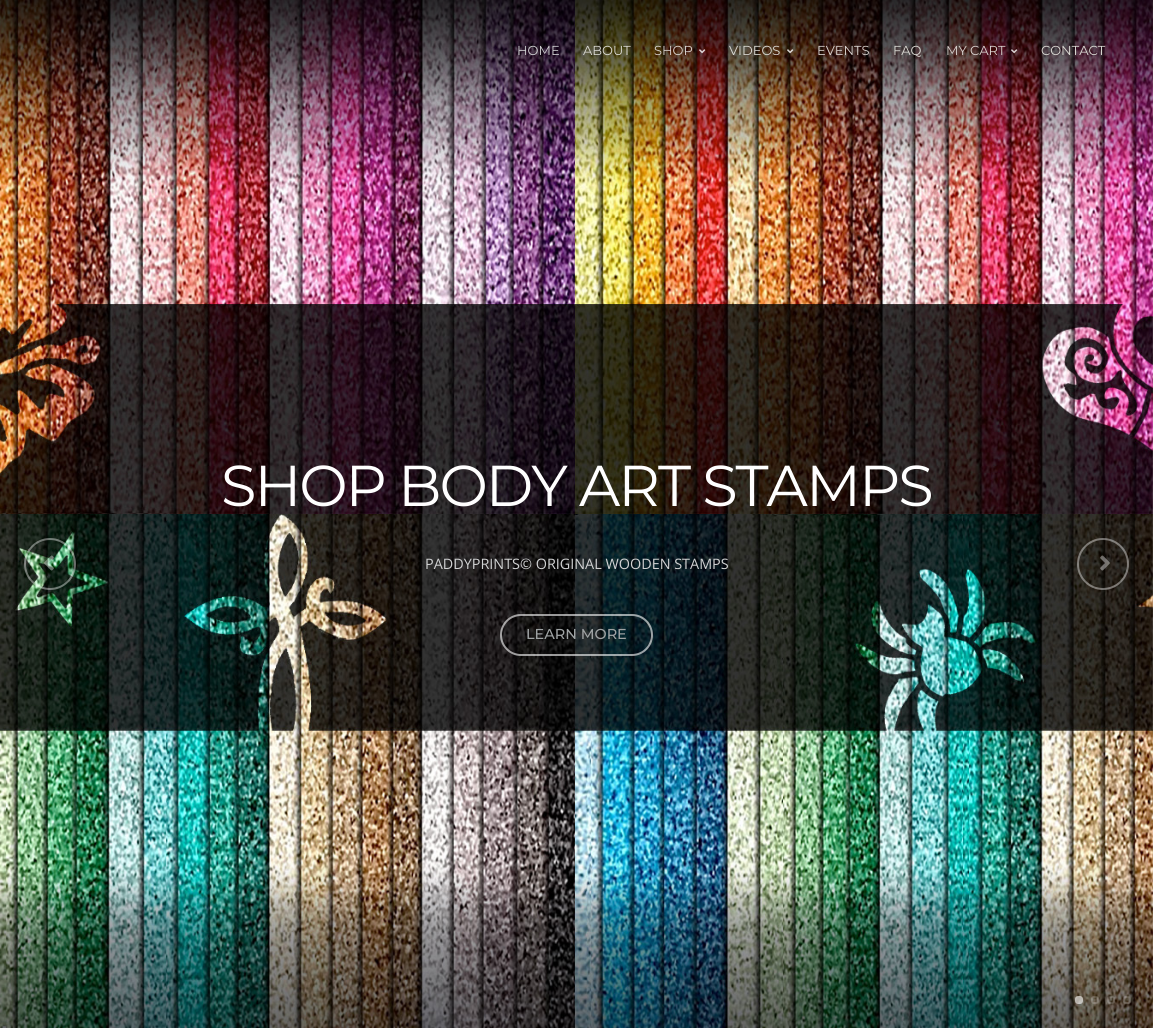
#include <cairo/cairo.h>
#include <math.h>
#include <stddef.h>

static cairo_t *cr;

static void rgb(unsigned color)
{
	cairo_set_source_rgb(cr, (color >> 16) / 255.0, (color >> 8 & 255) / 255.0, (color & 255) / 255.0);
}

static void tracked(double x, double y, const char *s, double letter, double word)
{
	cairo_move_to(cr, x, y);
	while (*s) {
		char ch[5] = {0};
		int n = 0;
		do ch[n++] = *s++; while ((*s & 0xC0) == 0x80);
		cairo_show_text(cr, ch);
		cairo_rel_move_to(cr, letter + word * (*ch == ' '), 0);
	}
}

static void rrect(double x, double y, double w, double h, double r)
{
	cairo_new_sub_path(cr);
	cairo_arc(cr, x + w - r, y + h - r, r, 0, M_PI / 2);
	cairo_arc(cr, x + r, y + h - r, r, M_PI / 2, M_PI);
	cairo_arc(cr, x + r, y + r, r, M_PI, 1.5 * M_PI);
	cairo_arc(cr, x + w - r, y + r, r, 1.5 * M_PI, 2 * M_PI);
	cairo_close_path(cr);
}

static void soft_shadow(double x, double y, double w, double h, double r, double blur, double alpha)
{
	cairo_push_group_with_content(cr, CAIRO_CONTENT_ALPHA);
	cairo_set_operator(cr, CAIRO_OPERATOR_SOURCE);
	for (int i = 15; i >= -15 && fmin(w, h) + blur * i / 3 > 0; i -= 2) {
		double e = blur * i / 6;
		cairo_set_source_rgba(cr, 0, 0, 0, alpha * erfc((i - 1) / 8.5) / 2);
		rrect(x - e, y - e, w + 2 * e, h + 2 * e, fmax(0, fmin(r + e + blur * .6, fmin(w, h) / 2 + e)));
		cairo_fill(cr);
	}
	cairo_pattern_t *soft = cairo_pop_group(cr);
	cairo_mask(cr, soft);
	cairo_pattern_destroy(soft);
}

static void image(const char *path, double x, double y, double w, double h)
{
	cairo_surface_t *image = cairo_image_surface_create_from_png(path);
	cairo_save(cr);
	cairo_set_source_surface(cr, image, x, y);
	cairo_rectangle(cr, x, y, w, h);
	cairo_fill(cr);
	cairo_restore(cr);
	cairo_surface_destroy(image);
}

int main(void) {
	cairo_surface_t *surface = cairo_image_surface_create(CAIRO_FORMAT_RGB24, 1153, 1028);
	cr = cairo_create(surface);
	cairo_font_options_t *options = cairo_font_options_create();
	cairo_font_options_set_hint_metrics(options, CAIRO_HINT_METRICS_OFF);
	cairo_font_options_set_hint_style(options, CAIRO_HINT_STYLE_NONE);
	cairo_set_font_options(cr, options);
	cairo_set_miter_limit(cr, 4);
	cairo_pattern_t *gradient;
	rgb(0xffffff);
	cairo_paint(cr);
	rgb(0x808080);
	soft_shadow(1083, 954, 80, 60, 2, 2.5, 1);
	image("img/4.png", 0, 0, 1153, 1028);
	gradient = cairo_pattern_create_linear(577, 0, 577, 104);
	cairo_pattern_add_color_stop_rgba(gradient, 0, 0, 0, 0, 0.6);
	cairo_pattern_add_color_stop_rgba(gradient, 1, 0, 0, 0, 0);
	cairo_set_source(cr, gradient);
	cairo_pattern_destroy(gradient);
	cairo_rectangle(cr, 0, 0, 1153, 100);
	cairo_fill(cr);
	image("img/1.png", 699, 49, 7, 5);
	image("img/2.png", 787, 49, 7, 5);
	image("img/3.png", 1011, 49, 7, 5);
	rrect(501, 615, 151, 40, 20);
	cairo_set_source_rgba(cr, 1, 1, 1, 0.6);
	cairo_stroke(cr);
	cairo_arc(cr, 50, 564, 25, 0, 2 * M_PI);
	cairo_set_source_rgba(cr, 1, 1, 1, 0.4);
	cairo_stroke(cr);
	image("img/5.png", 44, 555, 10, 16);
	cairo_arc(cr, 1103, 564, 25, 0, 2 * M_PI);
	cairo_stroke(cr);
	image("img/6.png", 1100, 555, 10, 16);
	cairo_set_source_rgba(cr, 1, 1, 1, 0.6);
	rrect(1075, 996, 8, 8, 3);
	cairo_fill(cr);
	rrect(1092, 997, 6, 6, 2);
	cairo_set_source_rgba(cr, 1, 1, 1, 0.2);
	cairo_stroke(cr);
	rrect(1108, 997, 6, 6, 2);
	cairo_stroke(cr);
	rrect(1124, 997, 6, 6, 2);
	cairo_stroke(cr);
	cairo_select_font_face(cr, "Montserrat", CAIRO_FONT_SLANT_NORMAL, CAIRO_FONT_WEIGHT_NORMAL);
	cairo_set_font_size(cr, 13);
	rgb(0xd0d1d2);
	cairo_move_to(cr, 517, 55);
	cairo_show_text(cr, "HOME");
	rgb(0xdbdad4);
	cairo_move_to(cr, 583, 55);
	cairo_show_text(cr, "ABOUT");
	rgb(0xd9d3cf);
	cairo_move_to(cr, 654, 55);
	cairo_show_text(cr, "SHOP");
	rgb(0xdbdad4);
	cairo_move_to(cr, 729, 55);
	cairo_show_text(cr, "VIDEOS");
	rgb(0xd9d3cf);
	cairo_move_to(cr, 817, 55);
	cairo_show_text(cr, "EVENTS");
	rgb(0xdbdad4);
	cairo_move_to(cr, 893, 55);
	cairo_show_text(cr, "FAQ");
	rgb(0xd9d3cf);
	cairo_move_to(cr, 946, 55);
	cairo_show_text(cr, "MY CART");
	rgb(0xdbdad4);
	cairo_move_to(cr, 1041, 55);
	cairo_show_text(cr, "CONTACT");
	cairo_set_font_size(cr, 57.6);
	rgb(0xffffff);
	tracked(221, 506, "SHOP BODY ART STAMPS", -2, 0);
	cairo_select_font_face(cr, "Open Sans", CAIRO_FONT_SLANT_NORMAL, CAIRO_FONT_WEIGHT_NORMAL);
	cairo_set_font_size(cr, 14.4);
	rgb(0xd0d1d2);
	cairo_move_to(cr, 425, 569);
	cairo_show_text(cr, "PADDYPRINTS© ORIGINAL WOODEN STAMPS");
	cairo_select_font_face(cr, "Montserrat Medium", CAIRO_FONT_SLANT_NORMAL, CAIRO_FONT_WEIGHT_NORMAL);
	rgb(0x9fa3a4);
	cairo_move_to(cr, 526, 639);
	cairo_show_text(cr, "LEARN MORE");
	cairo_surface_write_to_png(surface, "page.png");
	cairo_font_options_destroy(options);
	cairo_destroy(cr);
	cairo_surface_destroy(surface);
	return 0;
}
